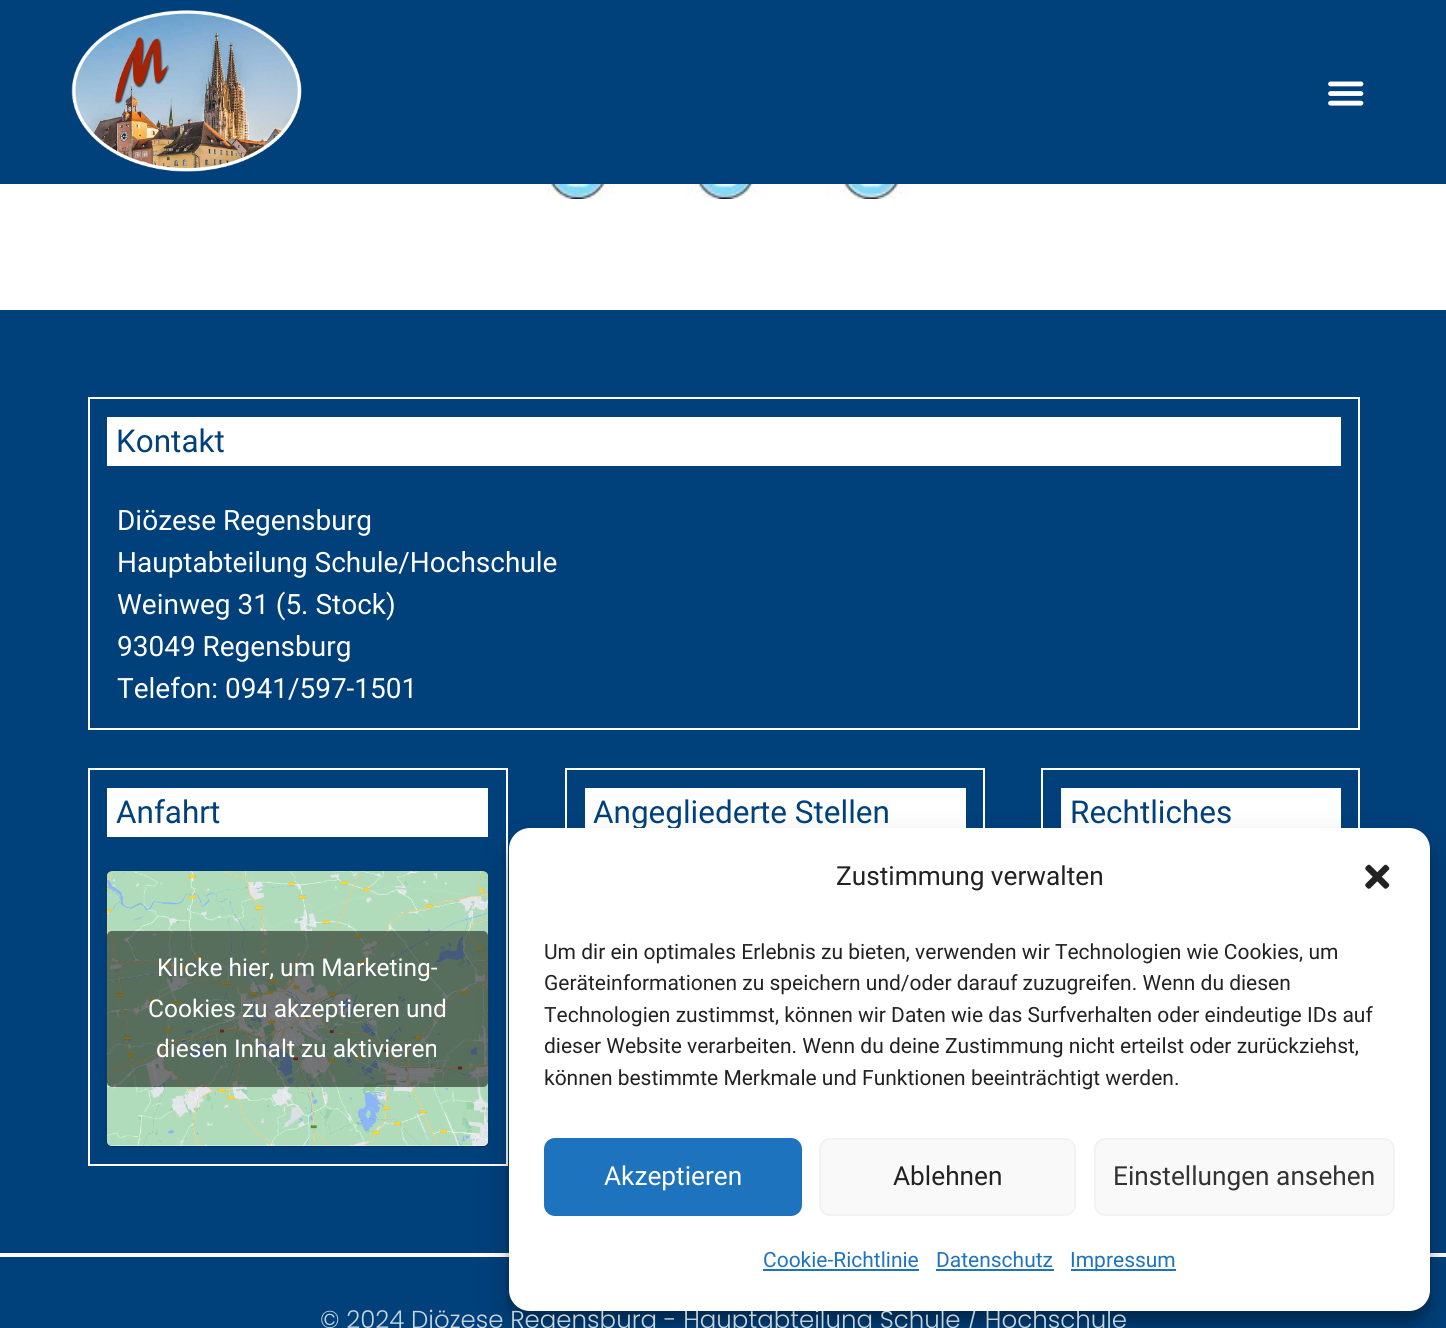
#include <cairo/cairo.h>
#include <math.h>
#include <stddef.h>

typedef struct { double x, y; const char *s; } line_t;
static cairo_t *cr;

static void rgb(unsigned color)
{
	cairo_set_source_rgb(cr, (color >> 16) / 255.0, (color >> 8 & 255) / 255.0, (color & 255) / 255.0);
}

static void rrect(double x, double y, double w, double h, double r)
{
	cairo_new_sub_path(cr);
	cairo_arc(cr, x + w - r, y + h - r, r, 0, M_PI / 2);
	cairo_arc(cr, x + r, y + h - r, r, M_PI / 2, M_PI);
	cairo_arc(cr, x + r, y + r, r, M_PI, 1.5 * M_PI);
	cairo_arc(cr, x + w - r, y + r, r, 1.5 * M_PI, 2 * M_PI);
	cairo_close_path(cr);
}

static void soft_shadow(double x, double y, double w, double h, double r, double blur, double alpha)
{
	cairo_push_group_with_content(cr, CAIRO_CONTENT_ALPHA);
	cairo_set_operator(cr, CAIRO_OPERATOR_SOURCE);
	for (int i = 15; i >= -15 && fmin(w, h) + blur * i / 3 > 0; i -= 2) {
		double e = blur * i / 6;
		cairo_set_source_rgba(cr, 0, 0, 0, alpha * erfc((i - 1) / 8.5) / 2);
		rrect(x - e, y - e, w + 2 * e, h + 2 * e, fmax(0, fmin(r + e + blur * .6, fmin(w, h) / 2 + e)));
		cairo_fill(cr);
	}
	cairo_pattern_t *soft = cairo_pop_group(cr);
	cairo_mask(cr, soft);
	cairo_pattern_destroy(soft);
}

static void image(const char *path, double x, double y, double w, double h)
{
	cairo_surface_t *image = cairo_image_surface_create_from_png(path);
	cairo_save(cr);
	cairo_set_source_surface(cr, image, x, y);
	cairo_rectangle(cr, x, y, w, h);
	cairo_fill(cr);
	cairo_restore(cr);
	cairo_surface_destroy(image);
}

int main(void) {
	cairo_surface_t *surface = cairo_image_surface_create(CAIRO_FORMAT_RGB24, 1446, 1328);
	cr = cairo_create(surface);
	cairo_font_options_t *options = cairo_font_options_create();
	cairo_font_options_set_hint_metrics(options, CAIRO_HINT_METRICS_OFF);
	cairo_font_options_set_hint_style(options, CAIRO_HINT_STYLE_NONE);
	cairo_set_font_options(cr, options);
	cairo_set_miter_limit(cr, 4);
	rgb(0xffffff);
	cairo_paint(cr);
	rgb(0x00407b);
	cairo_rectangle(cr, 0, 0, 1446, 184);
	cairo_fill(cr);
	image("img/1.png", 71, 10, 231, 162);
	image("img/2.png", 1328, 81, 36, 25);
	image("img/3.png", 462, 184, 525, 15);
	cairo_rectangle(cr, 0, 310, 1446, 943);
	cairo_fill(cr);
	cairo_rectangle(cr, 89, 398, 1270, 331);
	rgb(0xffffff);
	cairo_stroke(cr);
	cairo_rectangle(cr, 107, 417, 1234, 49);
	cairo_fill(cr);
	cairo_rectangle(cr, 89, 769, 418, 396);
	cairo_stroke(cr);
	cairo_rectangle(cr, 107, 788, 381, 49);
	cairo_fill(cr);
	cairo_save(cr);
	cairo_rectangle(cr, 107, 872, 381, 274);
	cairo_clip(cr);
	rgb(0x000000);
	soft_shadow(107, 873, 381, 275, 5, 9, 0.15);
	cairo_restore(cr);
	rgb(0x000000);
	soft_shadow(107, 872, 381, 274, 5, 1, 0.5);
	rgb(0xffffff);
	rrect(107, 872, 381, 274, 5);
	cairo_fill(cr);
	image("img/4.png", 106, 871, 383, 275);
	cairo_set_source_rgba(cr, 0, 0, 0, 0.5);
	rrect(107, 931, 381, 156, 5);
	cairo_fill(cr);
	cairo_rectangle(cr, 566, 769, 418, 396);
	rgb(0xffffff);
	cairo_stroke(cr);
	cairo_rectangle(cr, 585, 788, 381, 40);
	cairo_fill(cr);
	cairo_rectangle(cr, 1042, 769, 317, 396);
	cairo_stroke(cr);
	cairo_rectangle(cr, 1061, 788, 280, 40);
	cairo_fill(cr);
	rgb(0x00407b);
	cairo_rectangle(cr, 0, 1257, 1446, 71);
	cairo_fill(cr);
	rgb(0x000000);
	soft_shadow(509, 838, 921, 483, 21, 5, 0.23);
	soft_shadow(509, 845, 921, 483, 21, 17.5, 0.19);
	cairo_select_font_face(cr, "Roboto", CAIRO_FONT_SLANT_NORMAL, CAIRO_FONT_WEIGHT_NORMAL);
	cairo_set_font_size(cr, 31.5);
	rgb(0x00407b);
	cairo_move_to(cr, 116, 452);
	cairo_show_text(cr, "Kontakt");
	cairo_set_font_size(cr, 28);
	rgb(0xffffff);
	{
		static const line_t items[] = {
			{117, 530, "Diözese Regensburg"},
			{117, 572, "Hauptabteilung Schule/Hochschule"},
			{117, 614, "Weinweg 31 (5. Stock)"},
			{117, 656, "93049 Regensburg"},
			{117, 698, "Telefon: 0941/597-1501"},
		};
		for (size_t i = 0; i < sizeof items / sizeof *items; i++) {
			cairo_move_to(cr, items[i].x, items[i].y);
			cairo_show_text(cr, items[i].s);
		}
	}
	cairo_set_font_size(cr, 31.5);
	rgb(0x00407b);
	cairo_move_to(cr, 116, 823);
	cairo_show_text(cr, "Anfahrt");
	cairo_set_font_size(cr, 24.5);
	rgb(0xffffff);
	{
		static const line_t items[] = {
			{157, 976, "Klicke hier, um Marketing-"},
			{148, 1017, "Cookies zu akzeptieren und"},
			{156, 1057, "diesen Inhalt zu aktivieren"},
		};
		for (size_t i = 0; i < sizeof items / sizeof *items; i++) {
			cairo_move_to(cr, items[i].x, items[i].y);
			cairo_show_text(cr, items[i].s);
		}
	}
	cairo_set_font_size(cr, 31.5);
	rgb(0x00407b);
	cairo_move_to(cr, 593, 823);
	cairo_show_text(cr, "Angegliederte Stellen");
	cairo_move_to(cr, 1070, 823);
	cairo_show_text(cr, "Rechtliches");
	cairo_select_font_face(cr, "Poppins Light", CAIRO_FONT_SLANT_NORMAL, CAIRO_FONT_WEIGHT_NORMAL);
	cairo_set_font_size(cr, 24.5);
	rgb(0xc8d5dc);
	cairo_move_to(cr, 320, 1328);
	cairo_show_text(cr, "© 2024 Diözese Regensburg - Hauptabteilung Schule / Hochschule");
	rgb(0xffffff);
	rrect(509, 828, 921, 483, 21);
	cairo_fill(cr);
	cairo_select_font_face(cr, "Roboto", CAIRO_FONT_SLANT_NORMAL, CAIRO_FONT_WEIGHT_NORMAL);
	cairo_set_font_size(cr, 26.25);
	rgb(0x222222);
	cairo_move_to(cr, 836, 885);
	cairo_show_text(cr, "Zustimmung verwalten");
	image("img/5.png", 1365, 864, 25, 25);
	cairo_set_font_size(cr, 21);
	{
		static const line_t items[] = {
			{544, 959, "Um dir ein optimales Erlebnis zu bieten, verwenden wir Technologien wie Cookies, um"},
			{544, 990, "Geräteinformationen zu speichern und/oder darauf zuzugreifen. Wenn du diesen"},
			{544, 1022, "Technologien zustimmst, können wir Daten wie das Surfverhalten oder eindeutige IDs auf"},
			{544, 1053, "dieser Website verarbeiten. Wenn du deine Zustimmung nicht erteilst oder zurückziehst,"},
			{544, 1085, "können bestimmte Merkmale und Funktionen beeinträchtigt werden."},
		};
		for (size_t i = 0; i < sizeof items / sizeof *items; i++) {
			cairo_move_to(cr, items[i].x, items[i].y);
			cairo_show_text(cr, items[i].s);
		}
	}
	rgb(0x1e73be);
	rrect(545, 1139, 256, 76, 10);
	cairo_fill_preserve(cr);
	cairo_stroke(cr);
	cairo_set_font_size(cr, 26.25);
	rgb(0xffffff);
	cairo_move_to(cr, 604, 1185);
	cairo_show_text(cr, "Akzeptieren");
	rgb(0xf9f9f9);
	rrect(820, 1139, 255, 76, 10);
	cairo_fill_preserve(cr);
	rgb(0xf2f2f2);
	cairo_stroke(cr);
	rgb(0x222222);
	cairo_move_to(cr, 893, 1185);
	cairo_show_text(cr, "Ablehnen");
	rgb(0xf9f9f9);
	rrect(1095, 1139, 299, 76, 10);
	cairo_fill_preserve(cr);
	rgb(0xf2f2f2);
	cairo_stroke(cr);
	rgb(0x333333);
	cairo_move_to(cr, 1113, 1185);
	cairo_show_text(cr, "Einstellungen ansehen");
	cairo_set_font_size(cr, 21);
	rgb(0x1e73be);
	cairo_move_to(cr, 763, 1267);
	cairo_show_text(cr, "Cookie-Richtlinie");
	cairo_rectangle(cr, 763, 1269, 156, 2);
	cairo_fill(cr);
	cairo_move_to(cr, 936, 1267);
	cairo_show_text(cr, "Datenschutz");
	cairo_rectangle(cr, 936, 1269, 118, 2);
	cairo_fill(cr);
	cairo_rectangle(cr, 1071, 1269, 105, 2);
	cairo_fill(cr);
	cairo_move_to(cr, 1070, 1267);
	cairo_show_text(cr, "Impressum");
	cairo_surface_write_to_png(surface, "page.png");
	cairo_font_options_destroy(options);
	cairo_destroy(cr);
	cairo_surface_destroy(surface);
	return 0;
}
